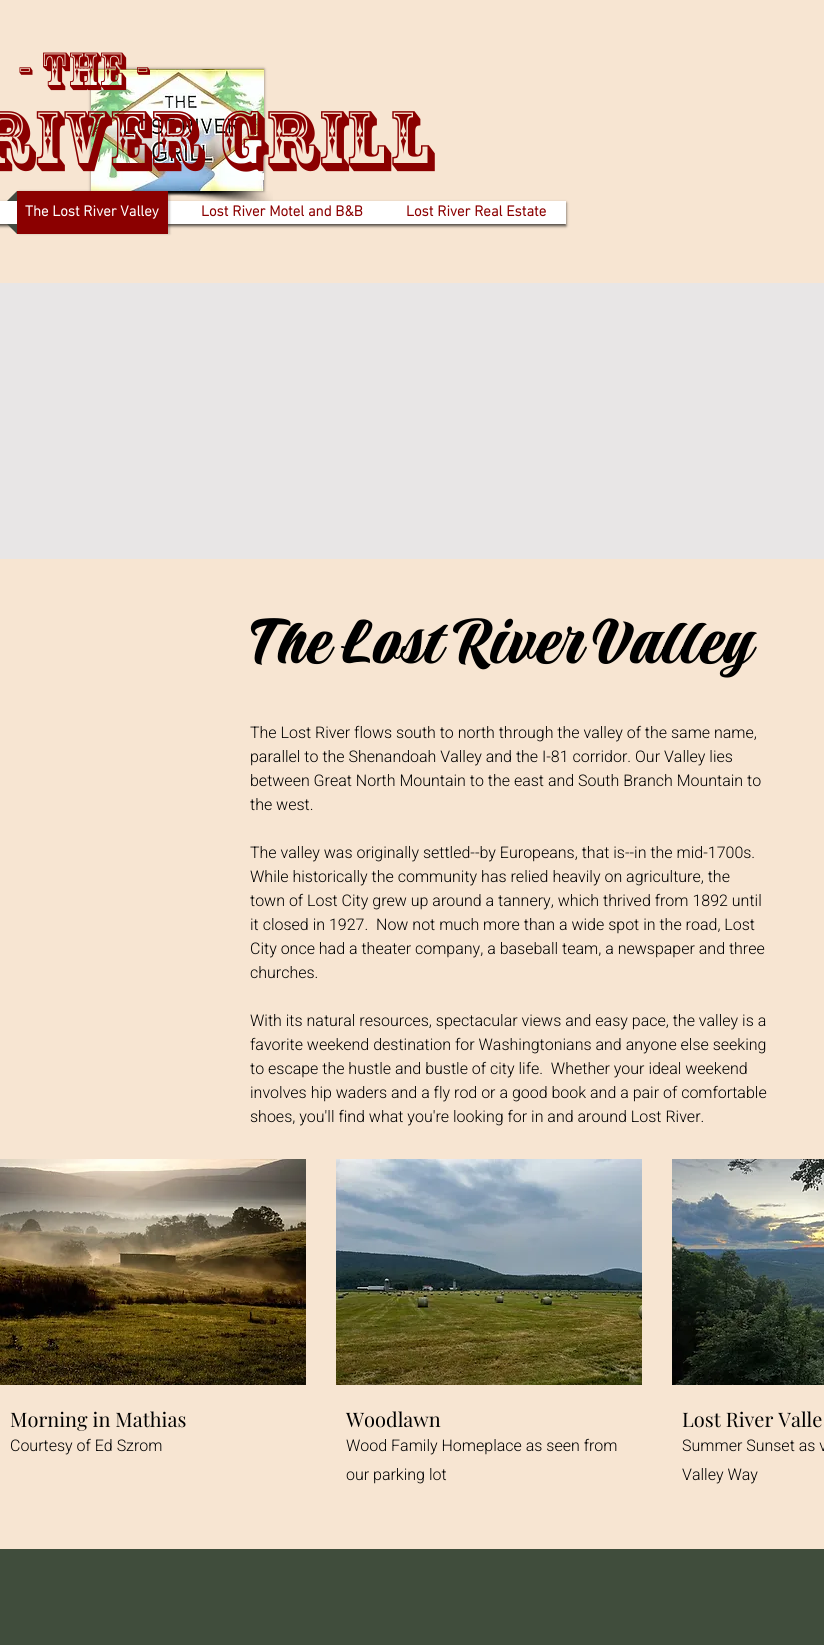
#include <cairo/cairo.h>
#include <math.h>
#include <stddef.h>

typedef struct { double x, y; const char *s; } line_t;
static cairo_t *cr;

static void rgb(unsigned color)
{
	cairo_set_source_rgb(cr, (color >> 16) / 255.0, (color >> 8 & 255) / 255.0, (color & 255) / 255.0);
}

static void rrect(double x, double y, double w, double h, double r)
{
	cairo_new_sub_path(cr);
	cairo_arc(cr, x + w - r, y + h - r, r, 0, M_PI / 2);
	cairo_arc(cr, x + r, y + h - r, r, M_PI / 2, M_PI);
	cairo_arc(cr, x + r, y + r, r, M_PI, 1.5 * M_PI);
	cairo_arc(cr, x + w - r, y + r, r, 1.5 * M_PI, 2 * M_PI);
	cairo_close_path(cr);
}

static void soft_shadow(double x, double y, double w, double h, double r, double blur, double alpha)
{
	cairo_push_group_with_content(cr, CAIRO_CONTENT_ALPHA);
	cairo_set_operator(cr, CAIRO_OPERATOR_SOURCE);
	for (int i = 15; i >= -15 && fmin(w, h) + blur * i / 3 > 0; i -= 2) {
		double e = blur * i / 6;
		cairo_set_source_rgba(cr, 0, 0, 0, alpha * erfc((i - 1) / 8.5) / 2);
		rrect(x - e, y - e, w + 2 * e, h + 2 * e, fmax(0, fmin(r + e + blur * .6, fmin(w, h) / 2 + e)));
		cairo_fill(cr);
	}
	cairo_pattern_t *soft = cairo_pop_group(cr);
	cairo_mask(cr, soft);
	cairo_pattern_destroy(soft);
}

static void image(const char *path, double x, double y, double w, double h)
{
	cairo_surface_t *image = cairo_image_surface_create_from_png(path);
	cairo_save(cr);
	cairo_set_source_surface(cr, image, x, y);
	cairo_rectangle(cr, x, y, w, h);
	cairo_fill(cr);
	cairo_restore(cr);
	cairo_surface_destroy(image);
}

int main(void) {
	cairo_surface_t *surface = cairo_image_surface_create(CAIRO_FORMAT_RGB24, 824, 1645);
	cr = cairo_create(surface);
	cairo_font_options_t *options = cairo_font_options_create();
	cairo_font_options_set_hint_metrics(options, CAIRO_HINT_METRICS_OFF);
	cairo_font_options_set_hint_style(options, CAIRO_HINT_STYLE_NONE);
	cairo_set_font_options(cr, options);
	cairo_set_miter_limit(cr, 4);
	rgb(0xe8e6e6);
	cairo_paint(cr);
	rgb(0xf7e5d2);
	cairo_rectangle(cr, 0, 0, 824, 283);
	cairo_fill(cr);
	rgb(0x000000);
	soft_shadow(91, 69, 173, 122, 0, 1.5, 0.5);
	image("img/2.png", 168, 191, 68, 6);
	image("img/3.png", 168, 191, 105, 10);
	soft_shadow(-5, 203, 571, 23, 0, 1.5, 0.7);
	rgb(0xffffff);
	cairo_rectangle(cr, 0, 201, 566, 23);
	cairo_fill(cr);
	image("img/1.png", 91, 69, 173, 122);
	rgb(0x000000);
	soft_shadow(19, 191, 151, 43, 0, 1, 0.2);
	rgb(0x434a41);
	cairo_new_path(cr);
	cairo_move_to(cr, 17, 201);
	cairo_line_to(cr, 7, 201);
	cairo_line_to(cr, 17, 191);
	cairo_close_path(cr);
	cairo_move_to(cr, 7, 224);
	cairo_line_to(cr, 17, 224);
	cairo_line_to(cr, 17, 234);
	cairo_close_path(cr);
	cairo_fill(cr);
	rgb(0x8b0000);
	cairo_rectangle(cr, 17, 191, 151, 43);
	cairo_fill(cr);
	rgb(0xf7e5d2);
	cairo_rectangle(cr, 0, 559, 824, 990);
	cairo_fill(cr);
	image("img/4.png", 0, 1159, 306, 226);
	image("img/5.png", 336, 1159, 306, 226);
	image("img/6.png", 672, 1159, 152, 226);
	rgb(0x404d3c);
	cairo_rectangle(cr, 0, 1549, 824, 96);
	cairo_fill(cr);
	cairo_select_font_face(cr, "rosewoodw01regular", CAIRO_FONT_SLANT_NORMAL, CAIRO_FONT_WEIGHT_NORMAL);
	cairo_set_font_size(cr, 50);
	rgb(0x8b0000);
	cairo_move_to(cr, 17, 85);
	cairo_show_text(cr, "- THE -");
	cairo_set_font_size(cr, 80);
	cairo_move_to(cr, -19, 163);
	cairo_show_text(cr, "River Grill");
	cairo_select_font_face(cr, "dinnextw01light", CAIRO_FONT_SLANT_NORMAL, CAIRO_FONT_WEIGHT_BOLD);
	cairo_set_font_size(cr, 15);
	rgb(0xffffff);
	cairo_move_to(cr, 25, 216);
	cairo_show_text(cr, "The Lost River Valley");
	rgb(0x8b0000);
	cairo_move_to(cr, 201, 216);
	cairo_show_text(cr, "Lost River Motel and B&B");
	cairo_move_to(cr, 406, 216);
	cairo_show_text(cr, "Lost River Real Estate");
	cairo_select_font_face(cr, "Praise", CAIRO_FONT_SLANT_NORMAL, CAIRO_FONT_WEIGHT_NORMAL);
	cairo_set_font_size(cr, 73);
	rgb(0x000000);
	cairo_move_to(cr, 247, 663);
	cairo_show_text(cr, "The Lost River Valley");
	cairo_select_font_face(cr, "Heebo Light", CAIRO_FONT_SLANT_NORMAL, CAIRO_FONT_WEIGHT_NORMAL);
	cairo_set_font_size(cr, 16);
	{
		static const line_t items[] = {
			{250, 738, "The Lost River flows south to north through the valley of the same name,"},
			{250, 762, "parallel to the Shenandoah Valley and the I-81 corridor. Our Valley lies"},
			{250, 786, "between Great North Mountain to the east and South Branch Mountain to"},
			{250, 810, "the west."},
			{250, 858, "The valley was originally settled--by Europeans, that is--in the mid-1700s."},
			{250, 882, "While historically the community has relied heavily on agriculture, the"},
			{250, 906, "town of Lost City grew up around a tannery, which thrived from 1892 until"},
			{250, 930, "it closed in 1927.  Now not much more than a wide spot in the road, Lost"},
			{250, 954, "City once had a theater company, a baseball team, a newspaper and three"},
			{250, 978, "churches."},
			{250, 1026, "With its natural resources, spectacular views and easy pace, the valley is a"},
			{250, 1050, "favorite weekend destination for Washingtonians and anyone else seeking"},
			{250, 1074, "to escape the hustle and bustle of city life.  Whether your ideal weekend"},
			{250, 1098, "involves hip waders and a fly rod or a good book and a pair of comfortable"},
			{250, 1122, "shoes, you'll find what you're looking for in and around Lost River."},
		};
		for (size_t i = 0; i < sizeof items / sizeof *items; i++) {
			cairo_move_to(cr, items[i].x, items[i].y);
			cairo_show_text(cr, items[i].s);
		}
	}
	cairo_select_font_face(cr, "Playfair Display", CAIRO_FONT_SLANT_NORMAL, CAIRO_FONT_WEIGHT_NORMAL);
	cairo_set_font_size(cr, 20);
	cairo_move_to(cr, 10, 1427);
	cairo_show_text(cr, "Morning in Mathias");
	cairo_select_font_face(cr, "Heebo Light", CAIRO_FONT_SLANT_NORMAL, CAIRO_FONT_WEIGHT_NORMAL);
	cairo_set_font_size(cr, 16);
	cairo_move_to(cr, 10, 1451);
	cairo_show_text(cr, "Courtesy of Ed Szrom");
	cairo_select_font_face(cr, "Playfair Display", CAIRO_FONT_SLANT_NORMAL, CAIRO_FONT_WEIGHT_NORMAL);
	cairo_set_font_size(cr, 20);
	cairo_move_to(cr, 346, 1427);
	cairo_show_text(cr, "Woodlawn");
	cairo_select_font_face(cr, "Heebo Light", CAIRO_FONT_SLANT_NORMAL, CAIRO_FONT_WEIGHT_NORMAL);
	cairo_set_font_size(cr, 16);
	cairo_move_to(cr, 346, 1451);
	cairo_show_text(cr, "Wood Family Homeplace as seen from");
	cairo_move_to(cr, 346, 1480);
	cairo_show_text(cr, "our parking lot");
	cairo_select_font_face(cr, "Playfair Display", CAIRO_FONT_SLANT_NORMAL, CAIRO_FONT_WEIGHT_NORMAL);
	cairo_set_font_size(cr, 20);
	cairo_move_to(cr, 682, 1427);
	cairo_show_text(cr, "Lost River Valle");
	cairo_select_font_face(cr, "Heebo Light", CAIRO_FONT_SLANT_NORMAL, CAIRO_FONT_WEIGHT_NORMAL);
	cairo_set_font_size(cr, 16);
	cairo_move_to(cr, 682, 1451);
	cairo_show_text(cr, "Summer Sunset as v");
	cairo_move_to(cr, 682, 1480);
	cairo_show_text(cr, "Valley Way");
	cairo_surface_write_to_png(surface, "page.png");
	cairo_font_options_destroy(options);
	cairo_destroy(cr);
	cairo_surface_destroy(surface);
	return 0;
}
